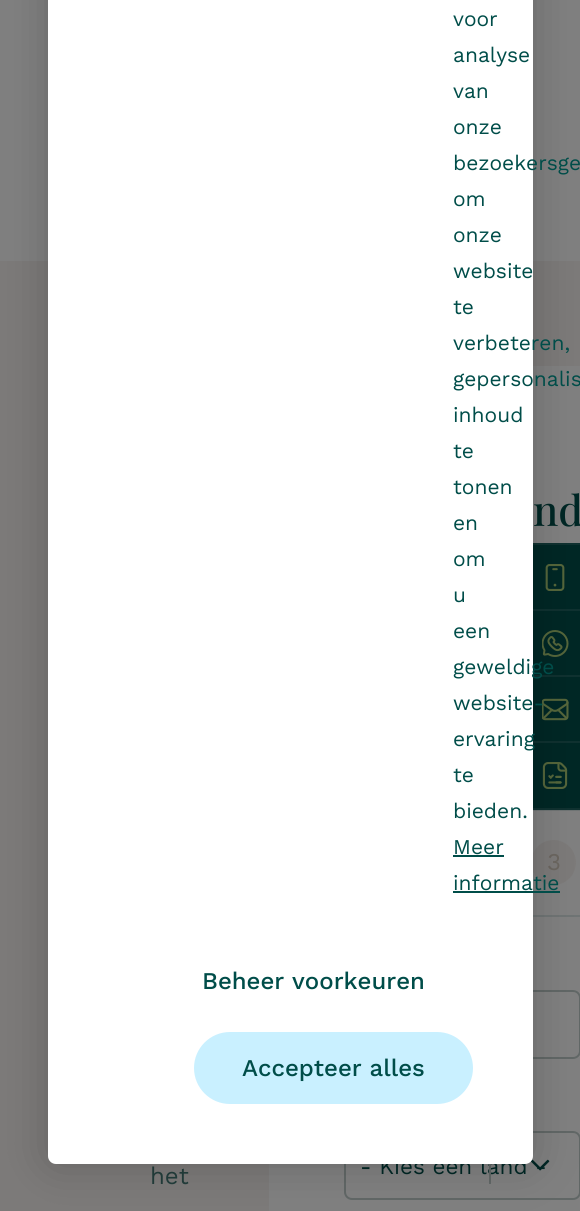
#include <cairo/cairo.h>
#include <math.h>
#include <stddef.h>

typedef struct { double x, y; const char *s; } line_t;
typedef struct { double x, y, w, h; unsigned color; } box_t;
static cairo_t *cr;

static void rgb(unsigned color)
{
	cairo_set_source_rgb(cr, (color >> 16) / 255.0, (color >> 8 & 255) / 255.0, (color & 255) / 255.0);
}

static void rrect(double x, double y, double w, double h, double r)
{
	cairo_new_sub_path(cr);
	cairo_arc(cr, x + w - r, y + h - r, r, 0, M_PI / 2);
	cairo_arc(cr, x + r, y + h - r, r, M_PI / 2, M_PI);
	cairo_arc(cr, x + r, y + r, r, M_PI, 1.5 * M_PI);
	cairo_arc(cr, x + w - r, y + r, r, 1.5 * M_PI, 2 * M_PI);
	cairo_close_path(cr);
}

static void soft_shadow(double x, double y, double w, double h, double r, double blur, double alpha)
{
	cairo_push_group_with_content(cr, CAIRO_CONTENT_ALPHA);
	cairo_set_operator(cr, CAIRO_OPERATOR_SOURCE);
	for (int i = 15; i >= -15 && fmin(w, h) + blur * i / 3 > 0; i -= 2) {
		double e = blur * i / 6;
		cairo_set_source_rgba(cr, 0, 0, 0, alpha * erfc((i - 1) / 8.5) / 2);
		rrect(x - e, y - e, w + 2 * e, h + 2 * e, fmax(0, fmin(r + e + blur * .6, fmin(w, h) / 2 + e)));
		cairo_fill(cr);
	}
	cairo_pattern_t *soft = cairo_pop_group(cr);
	cairo_mask(cr, soft);
	cairo_pattern_destroy(soft);
}

static void image(const char *path, double x, double y, double w, double h)
{
	cairo_surface_t *image = cairo_image_surface_create_from_png(path);
	cairo_save(cr);
	cairo_set_source_surface(cr, image, x, y);
	cairo_rectangle(cr, x, y, w, h);
	cairo_fill(cr);
	cairo_restore(cr);
	cairo_surface_destroy(image);
}

int main(void) {
	cairo_surface_t *surface = cairo_image_surface_create(CAIRO_FORMAT_RGB24, 580, 1211);
	cr = cairo_create(surface);
	cairo_font_options_t *options = cairo_font_options_create();
	cairo_font_options_set_hint_metrics(options, CAIRO_HINT_METRICS_OFF);
	cairo_font_options_set_hint_style(options, CAIRO_HINT_STYLE_NONE);
	cairo_set_font_options(cr, options);
	cairo_set_miter_limit(cr, 4);
	rgb(0x808080);
	cairo_paint(cr);
	{
		static const box_t items[] = {
			{0, 261, 580, 950, 0x7c7a79},
			{269, 366, 311, 845, 0x808080},
			{533, 810, 47, 1, 0x6f7474},
			{533, 915, 47, 2, 0x6f7474},
		};
		for (size_t i = 0; i < sizeof items / sizeof *items; i++) {
			rgb(items[i].color);
			cairo_rectangle(cr, items[i].x, items[i].y, items[i].w, items[i].h);
			cairo_fill(cr);
		}
	}
	rgb(0x7c7a79);
	cairo_arc(cr, 553.5, 862.5, 22.5, 0, 2 * M_PI);
	cairo_fill(cr);
	rrect(345, 991, 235, 67, 7);
	rgb(0x616766);
	cairo_stroke(cr);
	rrect(345, 1132, 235, 67, 7);
	cairo_stroke(cr);
	rgb(0x002725);
	cairo_rectangle(cr, 533, 543, 47, 267);
	cairo_fill(cr);
	cairo_rectangle(cr, 522, 544, 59, 265);
	cairo_set_source_rgba(cr, 0.502, 0.502, 0.502, 0.12);
	cairo_stroke(cr);
	cairo_rectangle(cr, 533, 609, 47, 2);
	cairo_fill(cr);
	image("img/2.png", 545, 564, 20, 27);
	cairo_rectangle(cr, 533, 675, 47, 2);
	cairo_fill(cr);
	image("img/3.png", 542, 630, 27, 27);
	cairo_rectangle(cr, 533, 741, 47, 2);
	cairo_fill(cr);
	image("img/4.png", 542, 698, 27, 23);
	image("img/5.png", 542, 762, 26, 27);
	cairo_select_font_face(cr, "Work Sans", CAIRO_FONT_SLANT_NORMAL, CAIRO_FONT_WEIGHT_NORMAL);
	cairo_set_font_size(cr, 24);
	rgb(0x223d3b);
	cairo_move_to(cr, 150, 1184);
	cairo_show_text(cr, "het");
	cairo_select_font_face(cr, "Playfair Display Medium", CAIRO_FONT_SLANT_NORMAL, CAIRO_FONT_WEIGHT_NORMAL);
	cairo_set_font_size(cr, 42);
	rgb(0x002725);
	cairo_move_to(cr, 533, 526);
	cairo_show_text(cr, "nd");
	cairo_select_font_face(cr, "Work Sans", CAIRO_FONT_SLANT_NORMAL, CAIRO_FONT_WEIGHT_NORMAL);
	cairo_set_font_size(cr, 24);
	rgb(0x6b6660);
	cairo_move_to(cr, 547, 870);
	cairo_show_text(cr, "3");
	cairo_set_font_size(cr, 22.5);
	rgb(0x002725);
	cairo_move_to(cr, 360, 1174);
	cairo_show_text(cr, "- Kies een land -");
	rgb(0x616766);
	cairo_rectangle(cr, 489, 1164, 2, 20);
	cairo_fill(cr);
	image("img/1.png", 531, 1159, 19, 12);
	rgb(0x000000);
	soft_shadow(48, -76, 485, 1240, 8, 22.5, 0.2);
	rgb(0xffffff);
	rrect(48, -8, 485, 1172, 8);
	cairo_fill(cr);
	rgb(0xc9f0ff);
	rrect(195, 1033, 277, 70, 35);
	cairo_fill_preserve(cr);
	cairo_stroke(cr);
	cairo_select_font_face(cr, "Work Sans Medium", CAIRO_FONT_SLANT_NORMAL, CAIRO_FONT_WEIGHT_NORMAL);
	cairo_set_font_size(cr, 24);
	rgb(0x004d49);
	cairo_move_to(cr, 242, 1076);
	cairo_show_text(cr, "Accepteer alles");
	cairo_move_to(cr, 202, 989);
	cairo_show_text(cr, "Beheer voorkeuren");
	cairo_select_font_face(cr, "Work Sans", CAIRO_FONT_SLANT_NORMAL, CAIRO_FONT_WEIGHT_NORMAL);
	cairo_set_font_size(cr, 21);
	cairo_move_to(cr, 453, 890);
	cairo_show_text(cr, "informatie");
	cairo_rectangle(cr, 453, 891, 107, 2);
	cairo_fill(cr);
	cairo_move_to(cr, 453, 854);
	cairo_show_text(cr, "Meer");
	cairo_rectangle(cr, 453, 855, 51, 2);
	cairo_fill(cr);
	{
		static const line_t items[] = {
			{453, 818, "bieden."},
			{453, 782, "te"},
			{453, 746, "ervaring"},
			{453, 710, "website-"},
			{453, 674, "geweldige"},
			{453, 638, "een"},
			{453, 602, "u"},
			{453, 566, "om"},
			{453, 530, "en"},
			{453, 494, "tonen"},
			{453, 458, "te"},
			{453, 422, "inhoud"},
			{453, 386, "gepersonalis"},
			{453, 350, "verbeteren,"},
			{453, 314, "te"},
			{453, 278, "website"},
			{453, 242, "onze"},
			{453, 206, "om"},
			{453, 170, "bezoekersge"},
			{453, 134, "onze"},
			{453, 98, "van"},
			{453, 62, "analyse"},
			{453, 26, "voor"},
		};
		for (size_t i = 0; i < sizeof items / sizeof *items; i++) {
			cairo_move_to(cr, items[i].x, items[i].y);
			cairo_show_text(cr, items[i].s);
		}
	}
	cairo_surface_write_to_png(surface, "page.png");
	cairo_font_options_destroy(options);
	cairo_destroy(cr);
	cairo_surface_destroy(surface);
	return 0;
}
